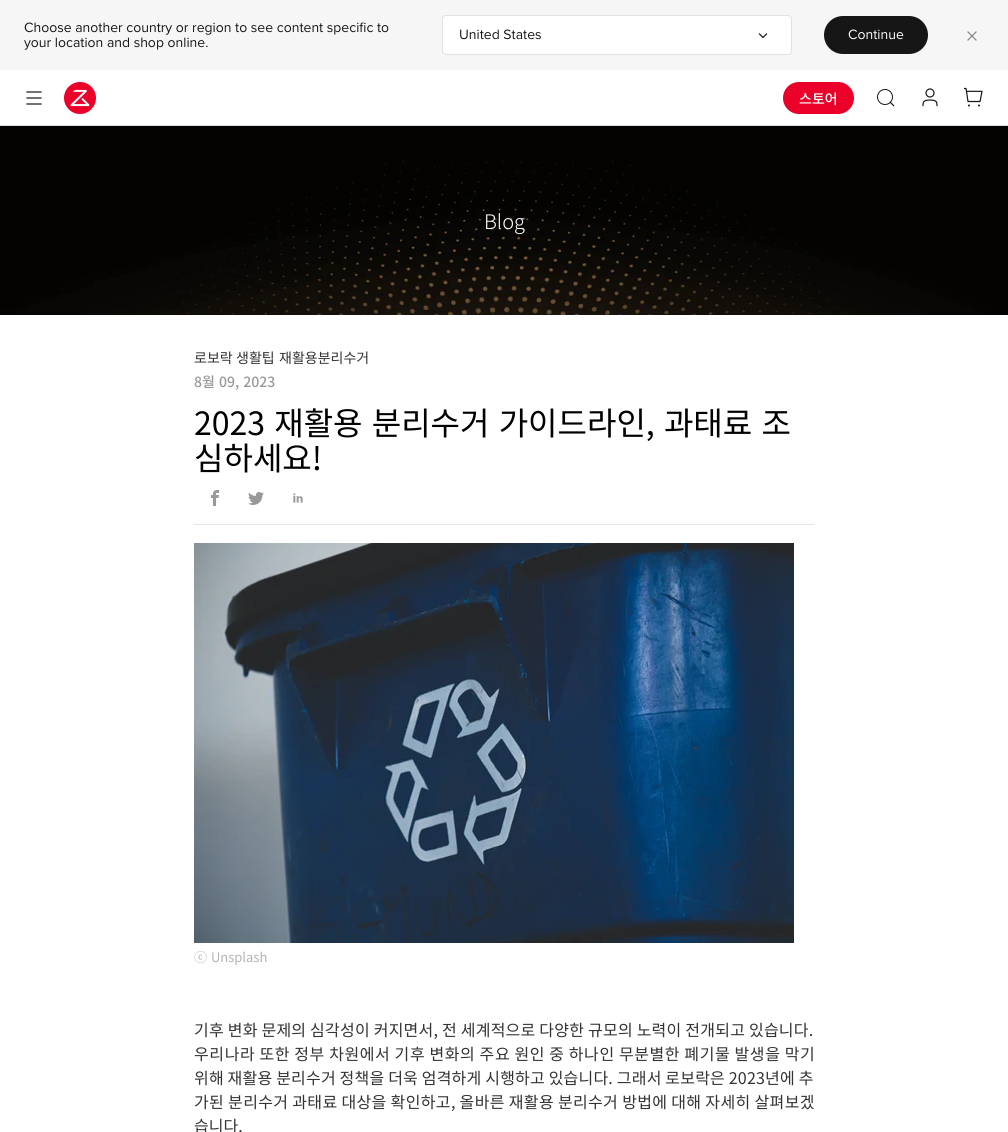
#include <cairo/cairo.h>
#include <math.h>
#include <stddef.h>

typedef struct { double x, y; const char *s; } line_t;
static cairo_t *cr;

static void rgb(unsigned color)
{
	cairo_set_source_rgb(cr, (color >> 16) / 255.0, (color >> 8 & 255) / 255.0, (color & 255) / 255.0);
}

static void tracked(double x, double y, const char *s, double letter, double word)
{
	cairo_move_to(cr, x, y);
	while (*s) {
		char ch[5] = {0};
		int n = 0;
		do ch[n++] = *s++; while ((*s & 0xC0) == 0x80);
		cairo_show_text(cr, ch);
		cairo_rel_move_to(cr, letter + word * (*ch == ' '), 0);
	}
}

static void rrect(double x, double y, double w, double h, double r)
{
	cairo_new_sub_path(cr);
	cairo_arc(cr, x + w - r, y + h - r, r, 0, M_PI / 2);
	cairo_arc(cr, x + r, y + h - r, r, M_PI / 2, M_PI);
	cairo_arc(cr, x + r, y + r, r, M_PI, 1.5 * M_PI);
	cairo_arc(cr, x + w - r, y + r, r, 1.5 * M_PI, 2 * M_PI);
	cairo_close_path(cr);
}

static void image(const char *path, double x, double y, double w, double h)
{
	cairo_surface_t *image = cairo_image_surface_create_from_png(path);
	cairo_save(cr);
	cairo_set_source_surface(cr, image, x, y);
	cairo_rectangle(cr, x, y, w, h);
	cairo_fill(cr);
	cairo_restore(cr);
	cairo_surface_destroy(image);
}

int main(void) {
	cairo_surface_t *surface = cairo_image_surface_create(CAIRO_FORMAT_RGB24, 1008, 1132);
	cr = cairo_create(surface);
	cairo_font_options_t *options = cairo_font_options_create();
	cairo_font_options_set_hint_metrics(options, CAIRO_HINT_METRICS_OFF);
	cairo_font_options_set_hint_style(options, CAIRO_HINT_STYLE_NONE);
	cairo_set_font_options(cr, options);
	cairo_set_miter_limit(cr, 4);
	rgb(0xffffff);
	cairo_paint(cr);
	rgb(0xf6f6f6);
	cairo_rectangle(cr, 0, 0, 1008, 70);
	cairo_fill(cr);
	rgb(0xffffff);
	rrect(442.5, 15.5, 349, 39, 3.5);
	cairo_fill_preserve(cr);
	rgb(0xe1e1e1);
	cairo_set_line_width(cr, 1);
	cairo_stroke(cr);
	cairo_new_path(cr);
	cairo_move_to(cr, 759.5, 34);
	cairo_line_to(cr, 763, 37.5);
	cairo_line_to(cr, 766.5, 34);
	rgb(0x161616);
	cairo_set_line_width(cr, 1.2);
	cairo_set_line_cap(cr, CAIRO_LINE_CAP_SQUARE);
	cairo_set_line_join(cr, CAIRO_LINE_JOIN_ROUND);
	cairo_stroke(cr);
	rrect(824, 16, 104, 38, 19);
	cairo_fill(cr);
	cairo_new_path(cr);
	cairo_move_to(cr, 968, 40);
	cairo_line_to(cr, 976, 32);
	cairo_move_to(cr, 976, 40);
	cairo_line_to(cr, 968, 32);
	rgb(0x868686);
	cairo_stroke(cr);
	rgb(0xe1e1e1);
	cairo_rectangle(cr, 0, 125, 1008, 1);
	cairo_fill(cr);
	cairo_new_path(cr);
	cairo_move_to(cr, 27, 98);
	cairo_line_to(cr, 41, 98);
	cairo_move_to(cr, 27, 92);
	cairo_line_to(cr, 41, 92);
	cairo_move_to(cr, 27, 104);
	cairo_line_to(cr, 41, 104);
	rgb(0x161616);
	cairo_stroke(cr);
	image("img/1.png", 64, 82, 32, 32);
	rgb(0xea0029);
	rrect(783, 82, 71, 32, 16);
	cairo_fill(cr);
	cairo_arc(cr, 885, 97, 7.5, 0, 2 * M_PI);
	rgb(0x161616);
	cairo_set_line_width(cr, 1);
	cairo_set_line_cap(cr, CAIRO_LINE_CAP_BUTT);
	cairo_set_line_join(cr, CAIRO_LINE_JOIN_MITER);
	cairo_stroke(cr);
	cairo_new_path(cr);
	cairo_move_to(cr, 890, 102);
	cairo_line_to(cr, 894, 106);
	cairo_set_line_width(cr, 1.2);
	cairo_stroke(cr);
	image("img/2.png", 922, 88, 16, 19);
	image("img/3.png", 964, 87, 19, 20);
	image("img/4.png", 0, 126, 1008, 189);
	rgb(0xe6e6e6);
	cairo_rectangle(cr, 194, 524, 620, 1);
	cairo_fill(cr);
	image("img/5.png", 211, 490, 8, 16);
	image("img/6.png", 248, 492, 16, 13);
	image("img/7.png", 293, 493, 10, 10);
	image("img/8.png", 194, 543, 600, 400);
	cairo_select_font_face(cr, "Proxima Nova", CAIRO_FONT_SLANT_NORMAL, CAIRO_FONT_WEIGHT_NORMAL);
	cairo_set_font_size(cr, 14);
	rgb(0x161616);
	{
		static const line_t items[] = {
			{24, 32, "Choose another country or region to see content specific to"},
			{24, 47, "your location and shop online."},
			{459, 39, "United States"},
		};
		for (size_t i = 0; i < sizeof items / sizeof *items; i++) {
			cairo_move_to(cr, items[i].x, items[i].y);
			cairo_show_text(cr, items[i].s);
		}
	}
	rgb(0xffffff);
	cairo_move_to(cr, 848, 39);
	cairo_show_text(cr, "Continue");
	cairo_select_font_face(cr, "Noto Sans KR Medium", CAIRO_FONT_SLANT_NORMAL, CAIRO_FONT_WEIGHT_NORMAL);
	cairo_move_to(cr, 799, 104);
	cairo_show_text(cr, "스토어");
	cairo_select_font_face(cr, "Noto Sans KR Light", CAIRO_FONT_SLANT_NORMAL, CAIRO_FONT_WEIGHT_NORMAL);
	cairo_set_font_size(cr, 20);
	cairo_move_to(cr, 484, 229);
	cairo_show_text(cr, "Blog");
	cairo_select_font_face(cr, "Noto Sans KR", CAIRO_FONT_SLANT_NORMAL, CAIRO_FONT_WEIGHT_NORMAL);
	cairo_set_font_size(cr, 14);
	rgb(0x333333);
	{
		static const line_t items[] = {
			{194, 363, "로보락"},
			{236, 363, "생활팁"},
			{279, 363, "재활용분리수거"},
		};
		for (size_t i = 0; i < sizeof items / sizeof *items; i++) {
			cairo_move_to(cr, items[i].x, items[i].y);
			cairo_show_text(cr, items[i].s);
		}
	}
	cairo_select_font_face(cr, "Noto Sans KR Medium", CAIRO_FONT_SLANT_NORMAL, CAIRO_FONT_WEIGHT_NORMAL);
	rgb(0x999999);
	tracked(194, 387, "8월 09, 2023", 0, 1);
	cairo_select_font_face(cr, "Noto Sans KR", CAIRO_FONT_SLANT_NORMAL, CAIRO_FONT_WEIGHT_NORMAL);
	cairo_set_font_size(cr, 32);
	rgb(0x000000);
	tracked(194, 435, "2023 재활용 분리수거 가이드라인, 과태료 조", 0, 2);
	cairo_move_to(cr, 194, 470);
	cairo_show_text(cr, "심하세요!");
	cairo_set_font_size(cr, 13);
	rgb(0xb3b3b3);
	tracked(194, 962, "ⓒ Unsplash", 0, 1);
	cairo_set_font_size(cr, 16);
	rgb(0x333333);
	tracked(194, 1036, "기후 변화 문제의 심각성이 커지면서, 전 세계적으로 다양한 규모의 노력이 전개되고 있습니다.", 0.23, 0);
	tracked(194, 1060, "우리나라 또한 정부 차원에서 기후 변화의 주요 원인 중 하나인 무분별한 폐기물 발생을 막기", 0.6, 0);
	tracked(194, 1084, "위해 재활용 분리수거 정책을 더욱 엄격하게 시행하고 있습니다. 그래서 로보락은 2023년에 추", 0.2, 0);
	tracked(194, 1108, "가된 분리수거 과태료 대상을 확인하고, 올바른 재활용 분리수거 방법에 대해 자세히 살펴보겠", 0.35, 0);
	cairo_move_to(cr, 194, 1132);
	cairo_show_text(cr, "습니다.");
	cairo_surface_write_to_png(surface, "page.png");
	cairo_font_options_destroy(options);
	cairo_destroy(cr);
	cairo_surface_destroy(surface);
	return 0;
}
